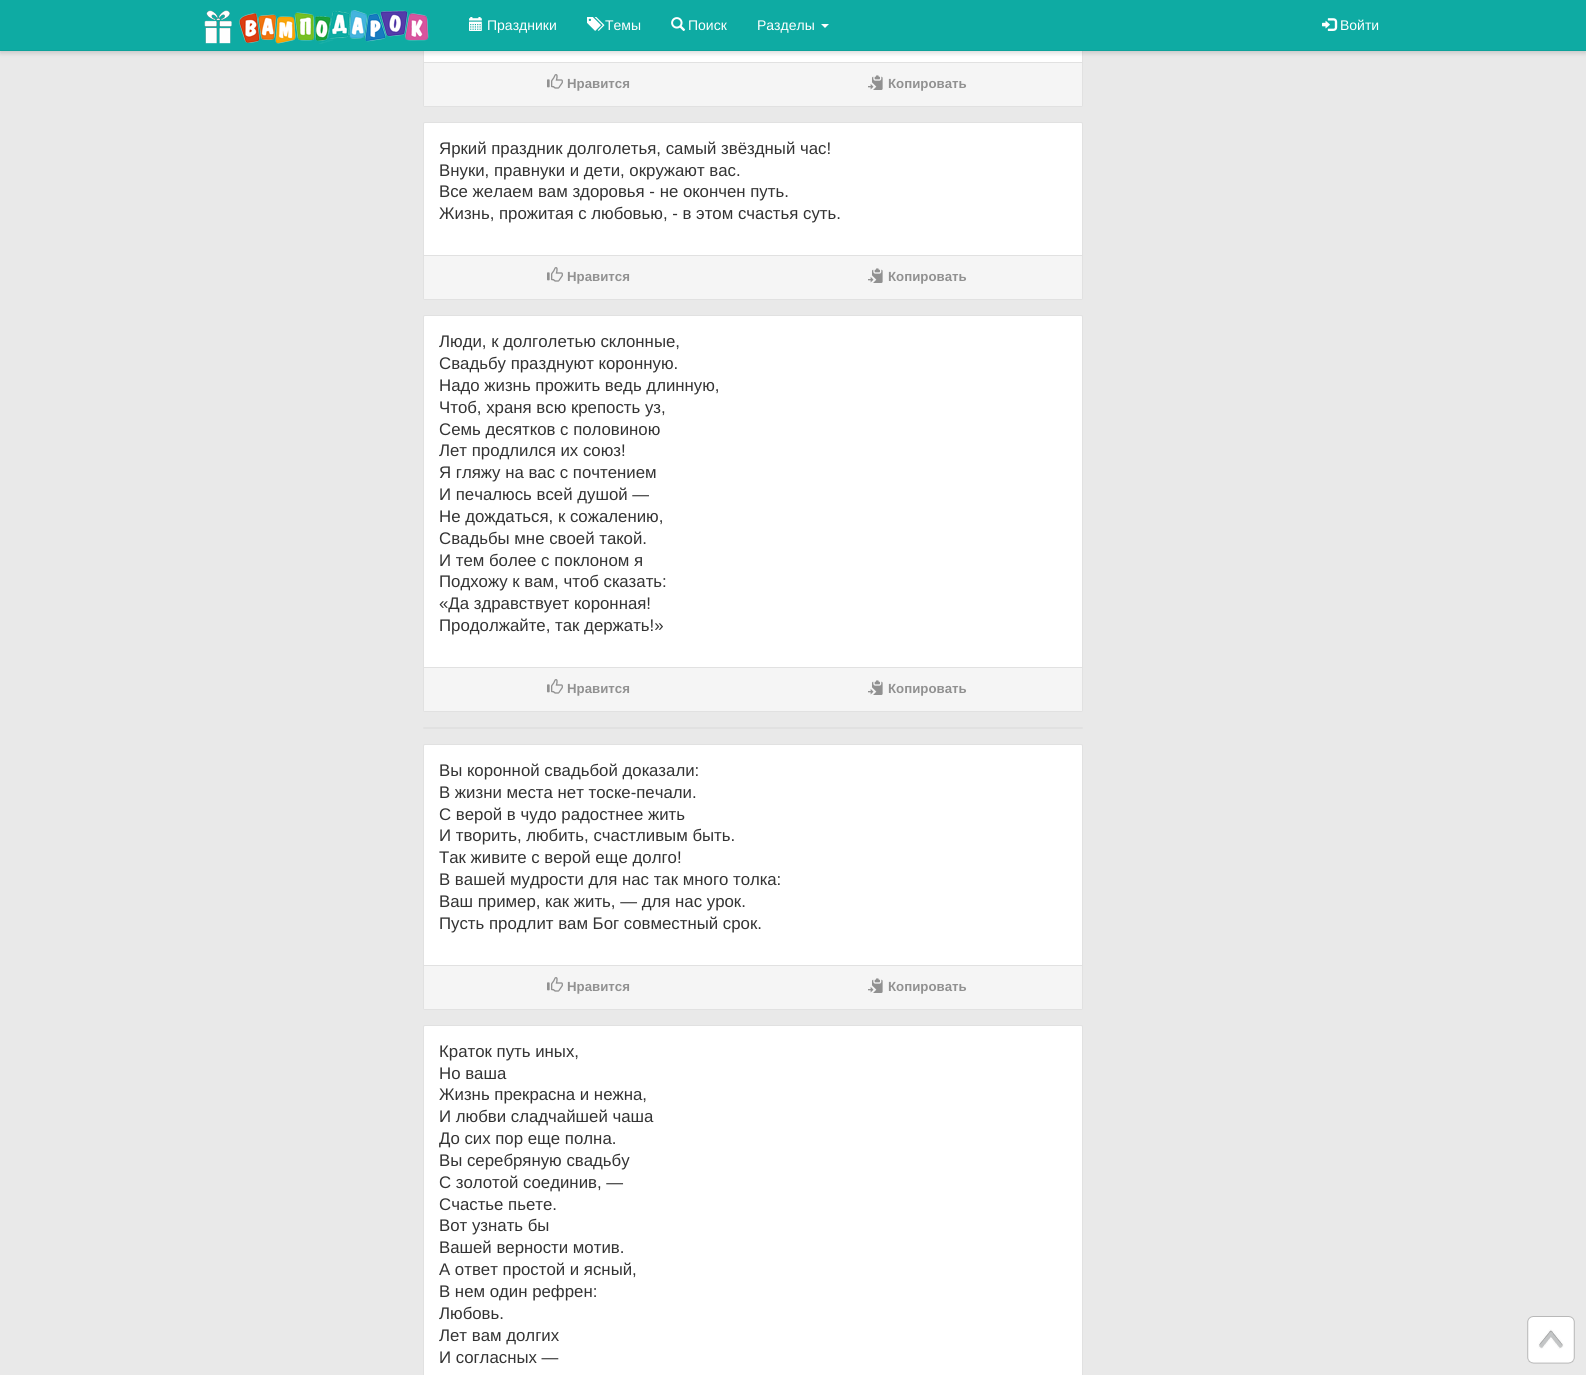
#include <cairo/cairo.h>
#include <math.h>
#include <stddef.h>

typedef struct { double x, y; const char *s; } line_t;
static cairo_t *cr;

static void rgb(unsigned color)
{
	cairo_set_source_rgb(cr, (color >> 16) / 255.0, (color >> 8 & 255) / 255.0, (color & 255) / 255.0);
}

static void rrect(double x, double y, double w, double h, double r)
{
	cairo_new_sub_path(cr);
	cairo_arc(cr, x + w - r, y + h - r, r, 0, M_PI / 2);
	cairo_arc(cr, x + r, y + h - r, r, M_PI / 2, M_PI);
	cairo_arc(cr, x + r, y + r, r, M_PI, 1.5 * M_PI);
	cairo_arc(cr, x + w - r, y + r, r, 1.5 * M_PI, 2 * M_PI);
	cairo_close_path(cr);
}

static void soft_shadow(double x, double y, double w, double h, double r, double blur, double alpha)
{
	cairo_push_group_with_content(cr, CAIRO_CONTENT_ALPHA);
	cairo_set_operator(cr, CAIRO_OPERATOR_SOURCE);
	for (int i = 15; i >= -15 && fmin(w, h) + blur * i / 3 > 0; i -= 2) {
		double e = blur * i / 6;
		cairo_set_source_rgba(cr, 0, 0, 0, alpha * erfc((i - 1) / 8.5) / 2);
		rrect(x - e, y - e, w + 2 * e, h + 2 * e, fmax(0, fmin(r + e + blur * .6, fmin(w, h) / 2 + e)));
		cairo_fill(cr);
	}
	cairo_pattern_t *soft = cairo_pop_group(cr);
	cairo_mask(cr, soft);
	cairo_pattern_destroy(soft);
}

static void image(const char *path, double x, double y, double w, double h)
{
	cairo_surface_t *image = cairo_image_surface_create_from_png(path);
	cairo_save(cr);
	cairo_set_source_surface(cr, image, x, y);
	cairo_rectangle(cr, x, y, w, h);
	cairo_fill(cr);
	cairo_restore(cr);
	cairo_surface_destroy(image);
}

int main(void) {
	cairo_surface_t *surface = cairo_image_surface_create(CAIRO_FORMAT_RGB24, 1586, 1375);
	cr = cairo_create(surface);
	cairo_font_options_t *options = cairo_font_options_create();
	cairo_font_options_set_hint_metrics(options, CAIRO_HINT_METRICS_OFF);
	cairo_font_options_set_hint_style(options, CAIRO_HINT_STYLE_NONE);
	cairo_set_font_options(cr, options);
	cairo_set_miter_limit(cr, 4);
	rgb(0xe9e9e9);
	cairo_paint(cr);
	rgb(0xffffff);
	rrect(423.5, -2.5, 659, 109, 1.5);
	cairo_fill_preserve(cr);
	rgb(0xe1e1e1);
	cairo_set_line_width(cr, 1);
	cairo_stroke(cr);
	rgb(0x000000);
	soft_shadow(0, 2, 1586, 51, 0, 2.5, 0.15);
	rgb(0x0eaba3);
	cairo_rectangle(cr, 0, 0, 1586, 50);
	cairo_fill(cr);
	rgb(0x0da29a);
	cairo_rectangle(cr, 0, 50, 1586, 1);
	cairo_fill(cr);
	image("img/1.png", 204, 10, 225, 34);
	image("img/2.png", 469, 17, 13, 14);
	image("img/4.png", 671, 17, 15, 14);
	rgb(0xffffff);
	cairo_new_path(cr);
	cairo_move_to(cr, 821, 24);
	cairo_line_to(cr, 829, 24);
	cairo_line_to(cr, 825, 28);
	cairo_close_path(cr);
	cairo_fill(cr);
	image("img/5.png", 1322, 18, 16, 13);
	rgb(0xf5f5f5);
	cairo_rectangle(cr, 424, 63, 658, 43);
	cairo_fill(cr);
	rgb(0xe1e1e1);
	cairo_rectangle(cr, 424, 62, 658, 1);
	cairo_fill(cr);
	image("img/6.png", 547, 74, 16, 15);
	image("img/7.png", 868, 75, 15, 15);
	rgb(0xffffff);
	rrect(423.5, 122.5, 659, 177, 1.5);
	cairo_fill_preserve(cr);
	rgb(0xe1e1e1);
	cairo_stroke(cr);
	rgb(0xf5f5f5);
	cairo_rectangle(cr, 424, 256, 658, 43);
	cairo_fill(cr);
	rgb(0xe1e1e1);
	cairo_rectangle(cr, 424, 255, 658, 1);
	cairo_fill(cr);
	image("img/6.png", 547, 267, 16, 15);
	image("img/7.png", 868, 268, 15, 15);
	rgb(0xffffff);
	rrect(423.5, 315.5, 659, 396, 1.5);
	cairo_fill_preserve(cr);
	rgb(0xe1e1e1);
	cairo_stroke(cr);
	rgb(0xf5f5f5);
	cairo_rectangle(cr, 424, 668, 658, 43);
	cairo_fill(cr);
	rgb(0xe1e1e1);
	cairo_rectangle(cr, 424, 667, 658, 1);
	cairo_fill(cr);
	image("img/6.png", 547, 679, 16, 15);
	image("img/7.png", 868, 680, 15, 15);
	rrect(423, 727, 660, 2, 1);
	cairo_fill(cr);
	rgb(0xffffff);
	rrect(423.5, 744.5, 659, 265, 1.5);
	cairo_fill_preserve(cr);
	rgb(0xe1e1e1);
	cairo_stroke(cr);
	rgb(0xf5f5f5);
	cairo_rectangle(cr, 424, 966, 658, 43);
	cairo_fill(cr);
	rgb(0xe1e1e1);
	cairo_rectangle(cr, 424, 965, 658, 1);
	cairo_fill(cr);
	image("img/6.png", 547, 977, 16, 15);
	image("img/7.png", 868, 978, 15, 15);
	rgb(0xffffff);
	rrect(423.5, 1025.5, 659, 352, 1.5);
	cairo_fill_preserve(cr);
	rgb(0xe1e1e1);
	cairo_stroke(cr);
	image("img/8.png", 1527, 1316, 48, 48);
	cairo_select_font_face(cr, "Liberation Sans", CAIRO_FONT_SLANT_NORMAL, CAIRO_FONT_WEIGHT_NORMAL);
	cairo_set_font_size(cr, 14);
	rgb(0xffffff);
	cairo_move_to(cr, 487, 30);
	cairo_show_text(cr, "Праздники");
	cairo_move_to(cr, 605, 30);
	cairo_show_text(cr, "Темы");
	image("img/3.png", 587, 17, 18, 14);
	{
		static const line_t items[] = {
			{688, 30, "Поиск"},
			{757, 30, "Разделы"},
			{1340, 30, "Войти"},
		};
		for (size_t i = 0; i < sizeof items / sizeof *items; i++) {
			cairo_move_to(cr, items[i].x, items[i].y);
			cairo_show_text(cr, items[i].s);
		}
	}
	cairo_select_font_face(cr, "Liberation Sans", CAIRO_FONT_SLANT_NORMAL, CAIRO_FONT_WEIGHT_BOLD);
	cairo_set_font_size(cr, 13.25);
	rgb(0x919191);
	cairo_move_to(cr, 567, 88);
	cairo_show_text(cr, "Нравится");
	cairo_move_to(cr, 888, 88);
	cairo_show_text(cr, "Копировать");
	cairo_select_font_face(cr, "Liberation Sans", CAIRO_FONT_SLANT_NORMAL, CAIRO_FONT_WEIGHT_NORMAL);
	cairo_set_font_size(cr, 16.8);
	rgb(0x333333);
	{
		static const line_t items[] = {
			{439, 154, "Яркий праздник долголетья, самый звёздный час!"},
			{439, 176, "Внуки, правнуки и дети, окружают вас."},
			{439, 197, "Все желаем вам здоровья - не окончен путь."},
			{439, 219, "Жизнь, прожитая с любовью, - в этом счастья суть."},
		};
		for (size_t i = 0; i < sizeof items / sizeof *items; i++) {
			cairo_move_to(cr, items[i].x, items[i].y);
			cairo_show_text(cr, items[i].s);
		}
	}
	cairo_select_font_face(cr, "Liberation Sans", CAIRO_FONT_SLANT_NORMAL, CAIRO_FONT_WEIGHT_BOLD);
	cairo_set_font_size(cr, 13.25);
	rgb(0x919191);
	cairo_move_to(cr, 567, 281);
	cairo_show_text(cr, "Нравится");
	cairo_move_to(cr, 888, 281);
	cairo_show_text(cr, "Копировать");
	cairo_select_font_face(cr, "Liberation Sans", CAIRO_FONT_SLANT_NORMAL, CAIRO_FONT_WEIGHT_NORMAL);
	cairo_set_font_size(cr, 16.8);
	rgb(0x333333);
	{
		static const line_t items[] = {
			{439, 347, "Люди, к долголетью склонные,"},
			{439, 369, "Свадьбу празднуют коронную."},
			{439, 391, "Надо жизнь прожить ведь длинную,"},
			{439, 413, "Чтоб, храня всю крепость уз,"},
			{439, 435, "Семь десятков с половиною"},
			{439, 456, "Лет продлился их союз!"},
			{439, 478, "Я гляжу на вас с почтением"},
			{439, 500, "И печалюсь всей душой —"},
			{439, 522, "Не дождаться, к сожалению,"},
			{439, 544, "Свадьбы мне своей такой."},
			{439, 566, "И тем более с поклоном я"},
			{439, 587, "Подхожу к вам, чтоб сказать:"},
			{439, 609, "«Да здравствует коронная!"},
			{439, 631, "Продолжайте, так держать!»"},
		};
		for (size_t i = 0; i < sizeof items / sizeof *items; i++) {
			cairo_move_to(cr, items[i].x, items[i].y);
			cairo_show_text(cr, items[i].s);
		}
	}
	cairo_select_font_face(cr, "Liberation Sans", CAIRO_FONT_SLANT_NORMAL, CAIRO_FONT_WEIGHT_BOLD);
	cairo_set_font_size(cr, 13.25);
	rgb(0x919191);
	cairo_move_to(cr, 567, 693);
	cairo_show_text(cr, "Нравится");
	cairo_move_to(cr, 888, 693);
	cairo_show_text(cr, "Копировать");
	cairo_select_font_face(cr, "Liberation Sans", CAIRO_FONT_SLANT_NORMAL, CAIRO_FONT_WEIGHT_NORMAL);
	cairo_set_font_size(cr, 16.8);
	rgb(0x333333);
	{
		static const line_t items[] = {
			{439, 776, "Вы коронной свадьбой доказали:"},
			{439, 798, "В жизни места нет тоске-печали."},
			{439, 820, "С верой в чудо радостнее жить"},
			{439, 841, "И творить, любить, счастливым быть."},
			{439, 863, "Так живите с верой еще долго!"},
			{439, 885, "В вашей мудрости для нас так много толка:"},
			{439, 907, "Ваш пример, как жить, — для нас урок."},
			{439, 929, "Пусть продлит вам Бог совместный срок."},
		};
		for (size_t i = 0; i < sizeof items / sizeof *items; i++) {
			cairo_move_to(cr, items[i].x, items[i].y);
			cairo_show_text(cr, items[i].s);
		}
	}
	cairo_select_font_face(cr, "Liberation Sans", CAIRO_FONT_SLANT_NORMAL, CAIRO_FONT_WEIGHT_BOLD);
	cairo_set_font_size(cr, 13.25);
	rgb(0x919191);
	cairo_move_to(cr, 567, 991);
	cairo_show_text(cr, "Нравится");
	cairo_move_to(cr, 888, 991);
	cairo_show_text(cr, "Копировать");
	cairo_select_font_face(cr, "Liberation Sans", CAIRO_FONT_SLANT_NORMAL, CAIRO_FONT_WEIGHT_NORMAL);
	cairo_set_font_size(cr, 16.8);
	rgb(0x333333);
	{
		static const line_t items[] = {
			{439, 1057, "Краток путь иных,"},
			{439, 1079, "Но ваша"},
			{439, 1100, "Жизнь прекрасна и нежна,"},
			{439, 1122, "И любви сладчайшей чаша"},
			{439, 1144, "До сих пор еще полна."},
			{439, 1166, "Вы серебряную свадьбу"},
			{439, 1188, "С золотой соединив, —"},
			{439, 1210, "Счастье пьете."},
			{439, 1231, "Вот узнать бы"},
			{439, 1253, "Вашей верности мотив."},
			{439, 1275, "А ответ простой и ясный,"},
			{439, 1297, "В нем один рефрен:"},
			{439, 1319, "Любовь."},
			{439, 1341, "Лет вам долгих"},
			{439, 1363, "И согласных —"},
		};
		for (size_t i = 0; i < sizeof items / sizeof *items; i++) {
			cairo_move_to(cr, items[i].x, items[i].y);
			cairo_show_text(cr, items[i].s);
		}
	}
	cairo_surface_write_to_png(surface, "page.png");
	cairo_font_options_destroy(options);
	cairo_destroy(cr);
	cairo_surface_destroy(surface);
	return 0;
}
